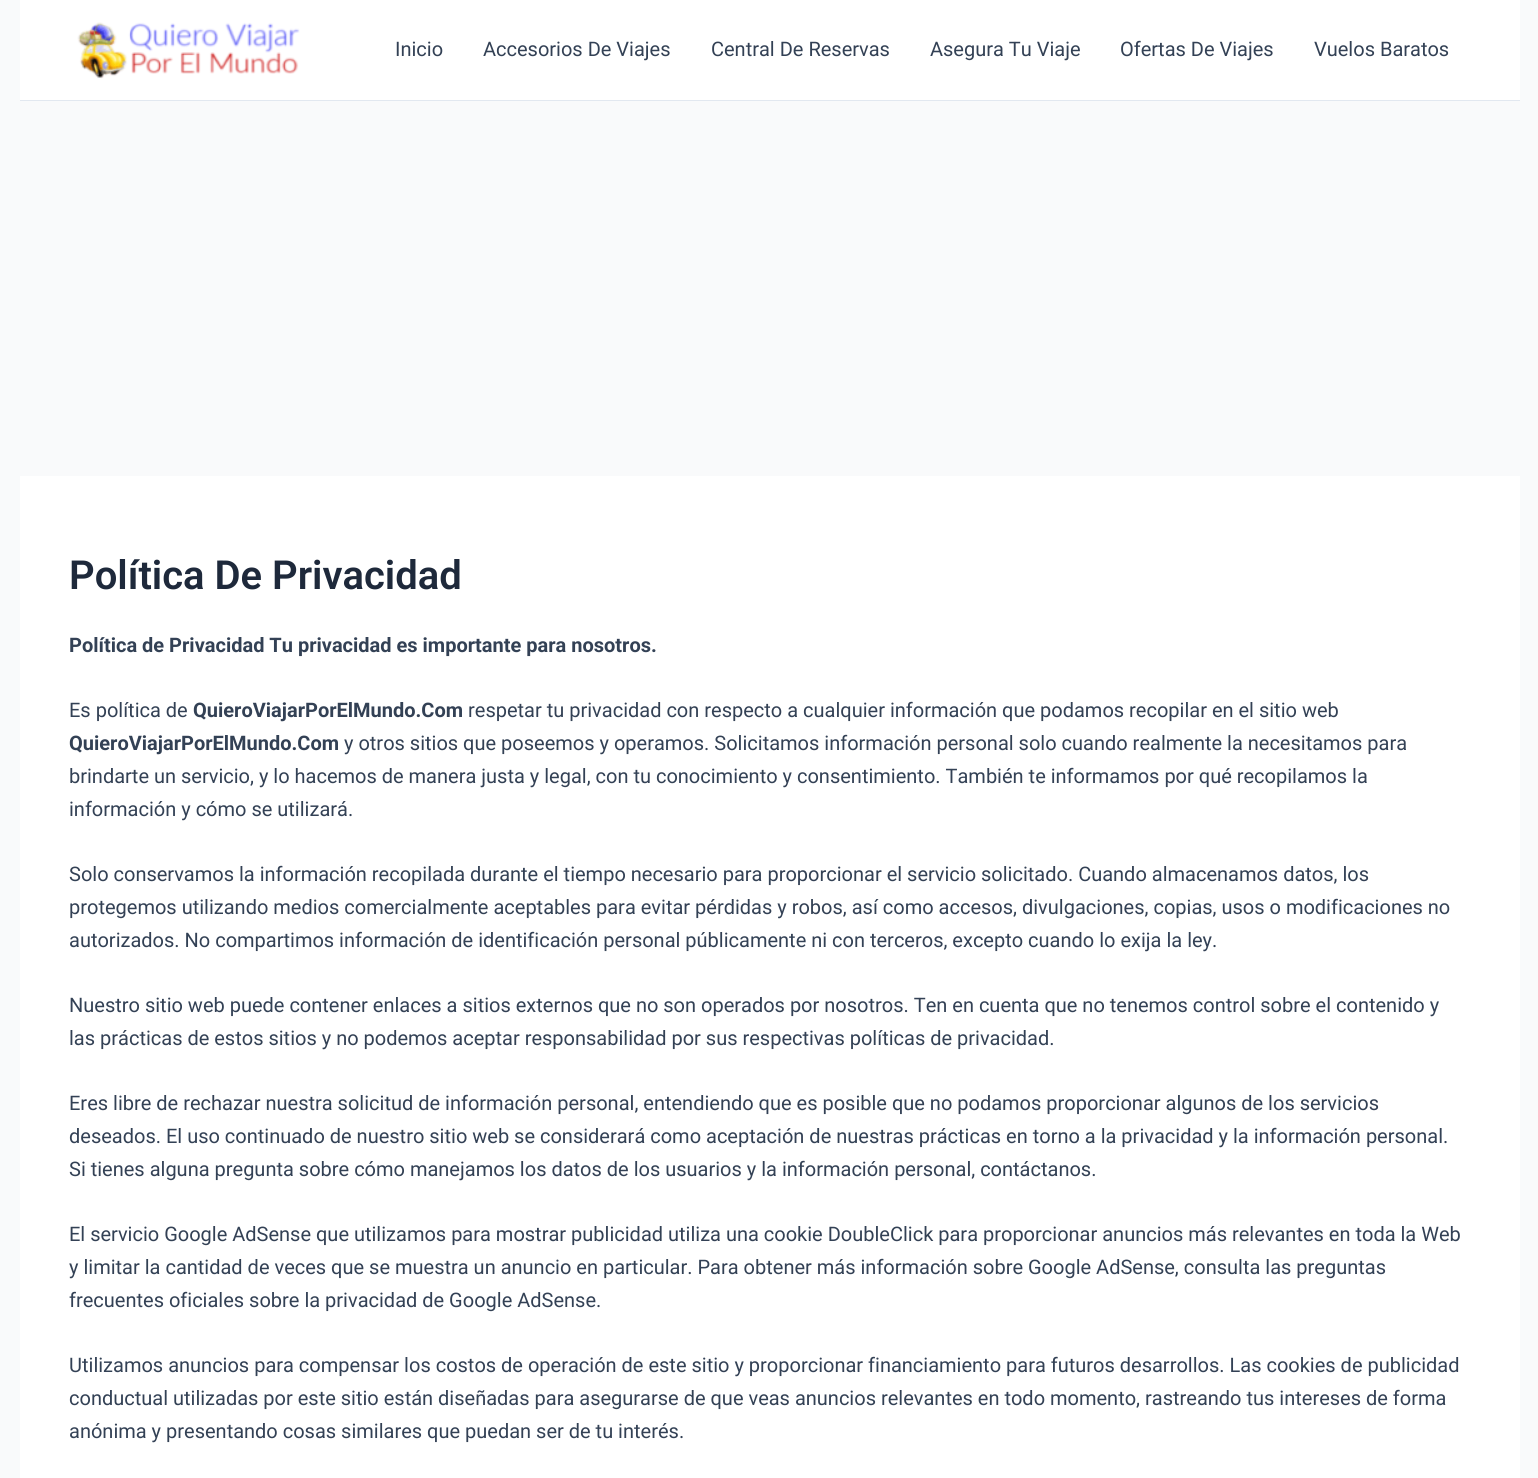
#include <cairo/cairo.h>
#include <math.h>
#include <stddef.h>

typedef struct { double x, y; const char *s; } line_t;
static cairo_t *cr;

static void rgb(unsigned color)
{
	cairo_set_source_rgb(cr, (color >> 16) / 255.0, (color >> 8 & 255) / 255.0, (color & 255) / 255.0);
}

static void image(const char *path, double x, double y, double w, double h)
{
	cairo_surface_t *image = cairo_image_surface_create_from_png(path);
	cairo_save(cr);
	cairo_set_source_surface(cr, image, x, y);
	cairo_rectangle(cr, x, y, w, h);
	cairo_fill(cr);
	cairo_restore(cr);
	cairo_surface_destroy(image);
}

int main(void) {
	cairo_surface_t *surface = cairo_image_surface_create(CAIRO_FORMAT_RGB24, 1538, 1478);
	cr = cairo_create(surface);
	cairo_font_options_t *options = cairo_font_options_create();
	cairo_font_options_set_hint_metrics(options, CAIRO_HINT_METRICS_OFF);
	cairo_font_options_set_hint_style(options, CAIRO_HINT_STYLE_NONE);
	cairo_set_font_options(cr, options);
	cairo_set_miter_limit(cr, 4);
	rgb(0xf9fafb);
	cairo_paint(cr);
	rgb(0xffffff);
	cairo_rectangle(cr, 20, 0, 1500, 100);
	cairo_fill(cr);
	rgb(0xe2e8f0);
	cairo_rectangle(cr, 20, 100, 1500, 1);
	cairo_fill(cr);
	image("img/1.png", 77, 22, 223, 57);
	rgb(0xffffff);
	cairo_rectangle(cr, 20, 476, 1500, 1002);
	cairo_fill(cr);
	cairo_select_font_face(cr, "Roboto", CAIRO_FONT_SLANT_NORMAL, CAIRO_FONT_WEIGHT_NORMAL);
	cairo_set_font_size(cr, 20);
	rgb(0x334155);
	{
		static const line_t items[] = {
			{395, 56, "Inicio"},
			{483, 56, "Accesorios De Viajes"},
			{711, 56, "Central De Reservas"},
			{930, 56, "Asegura Tu Viaje"},
			{1120, 56, "Ofertas De Viajes"},
			{1314, 56, "Vuelos Baratos"},
		};
		for (size_t i = 0; i < sizeof items / sizeof *items; i++) {
			cairo_move_to(cr, items[i].x, items[i].y);
			cairo_show_text(cr, items[i].s);
		}
	}
	cairo_select_font_face(cr, "Roboto SemiBold", CAIRO_FONT_SLANT_NORMAL, CAIRO_FONT_WEIGHT_NORMAL);
	cairo_set_font_size(cr, 40);
	rgb(0x1e293b);
	cairo_move_to(cr, 69, 589);
	cairo_show_text(cr, "Política De Privacidad");
	cairo_select_font_face(cr, "Roboto", CAIRO_FONT_SLANT_NORMAL, CAIRO_FONT_WEIGHT_BOLD);
	cairo_set_font_size(cr, 20);
	rgb(0x334155);
	cairo_move_to(cr, 69, 652);
	cairo_show_text(cr, "Política de Privacidad Tu privacidad es importante para nosotros.");
	cairo_select_font_face(cr, "Roboto", CAIRO_FONT_SLANT_NORMAL, CAIRO_FONT_WEIGHT_NORMAL);
	cairo_move_to(cr, 69, 717);
	cairo_show_text(cr, "Es política de");
	cairo_select_font_face(cr, "Roboto", CAIRO_FONT_SLANT_NORMAL, CAIRO_FONT_WEIGHT_BOLD);
	cairo_move_to(cr, 193, 717);
	cairo_show_text(cr, "QuieroViajarPorElMundo.Com");
	cairo_select_font_face(cr, "Roboto", CAIRO_FONT_SLANT_NORMAL, CAIRO_FONT_WEIGHT_NORMAL);
	cairo_move_to(cr, 468, 717);
	cairo_show_text(cr, "respetar tu privacidad con respecto a cualquier información que podamos recopilar en el sitio web");
	cairo_select_font_face(cr, "Roboto", CAIRO_FONT_SLANT_NORMAL, CAIRO_FONT_WEIGHT_BOLD);
	cairo_move_to(cr, 69, 750);
	cairo_show_text(cr, "QuieroViajarPorElMundo.Com");
	cairo_select_font_face(cr, "Roboto", CAIRO_FONT_SLANT_NORMAL, CAIRO_FONT_WEIGHT_NORMAL);
	{
		static const line_t items[] = {
			{344, 750, "y otros sitios que poseemos y operamos. Solicitamos información personal solo cuando realmente la necesitamos para"},
			{69, 783, "brindarte un servicio, y lo hacemos de manera justa y legal, con tu conocimiento y consentimiento. También te informamos por qué recopilamos la"},
			{69, 816, "información y cómo se utilizará."},
			{69, 881, "Solo conservamos la información recopilada durante el tiempo necesario para proporcionar el servicio solicitado. Cuando almacenamos datos, los"},
			{69, 914, "protegemos utilizando medios comercialmente aceptables para evitar pérdidas y robos, así como accesos, divulgaciones, copias, usos o modificaciones no"},
			{69, 947, "autorizados. No compartimos información de identificación personal públicamente ni con terceros, excepto cuando lo exija la ley."},
			{69, 1012, "Nuestro sitio web puede contener enlaces a sitios externos que no son operados por nosotros. Ten en cuenta que no tenemos control sobre el contenido y"},
			{69, 1045, "las prácticas de estos sitios y no podemos aceptar responsabilidad por sus respectivas políticas de privacidad."},
			{69, 1110, "Eres libre de rechazar nuestra solicitud de información personal, entendiendo que es posible que no podamos proporcionar algunos de los servicios"},
			{69, 1143, "deseados. El uso continuado de nuestro sitio web se considerará como aceptación de nuestras prácticas en torno a la privacidad y la información personal."},
			{69, 1176, "Si tienes alguna pregunta sobre cómo manejamos los datos de los usuarios y la información personal, contáctanos."},
			{69, 1241, "El servicio Google AdSense que utilizamos para mostrar publicidad utiliza una cookie DoubleClick para proporcionar anuncios más relevantes en toda la Web"},
			{69, 1274, "y limitar la cantidad de veces que se muestra un anuncio en particular. Para obtener más información sobre Google AdSense, consulta las preguntas"},
			{69, 1307, "frecuentes oficiales sobre la privacidad de Google AdSense."},
			{69, 1372, "Utilizamos anuncios para compensar los costos de operación de este sitio y proporcionar financiamiento para futuros desarrollos. Las cookies de publicidad"},
			{69, 1405, "conductual utilizadas por este sitio están diseñadas para asegurarse de que veas anuncios relevantes en todo momento, rastreando tus intereses de forma"},
			{69, 1438, "anónima y presentando cosas similares que puedan ser de tu interés."},
		};
		for (size_t i = 0; i < sizeof items / sizeof *items; i++) {
			cairo_move_to(cr, items[i].x, items[i].y);
			cairo_show_text(cr, items[i].s);
		}
	}
	cairo_surface_write_to_png(surface, "page.png");
	cairo_font_options_destroy(options);
	cairo_destroy(cr);
	cairo_surface_destroy(surface);
	return 0;
}
